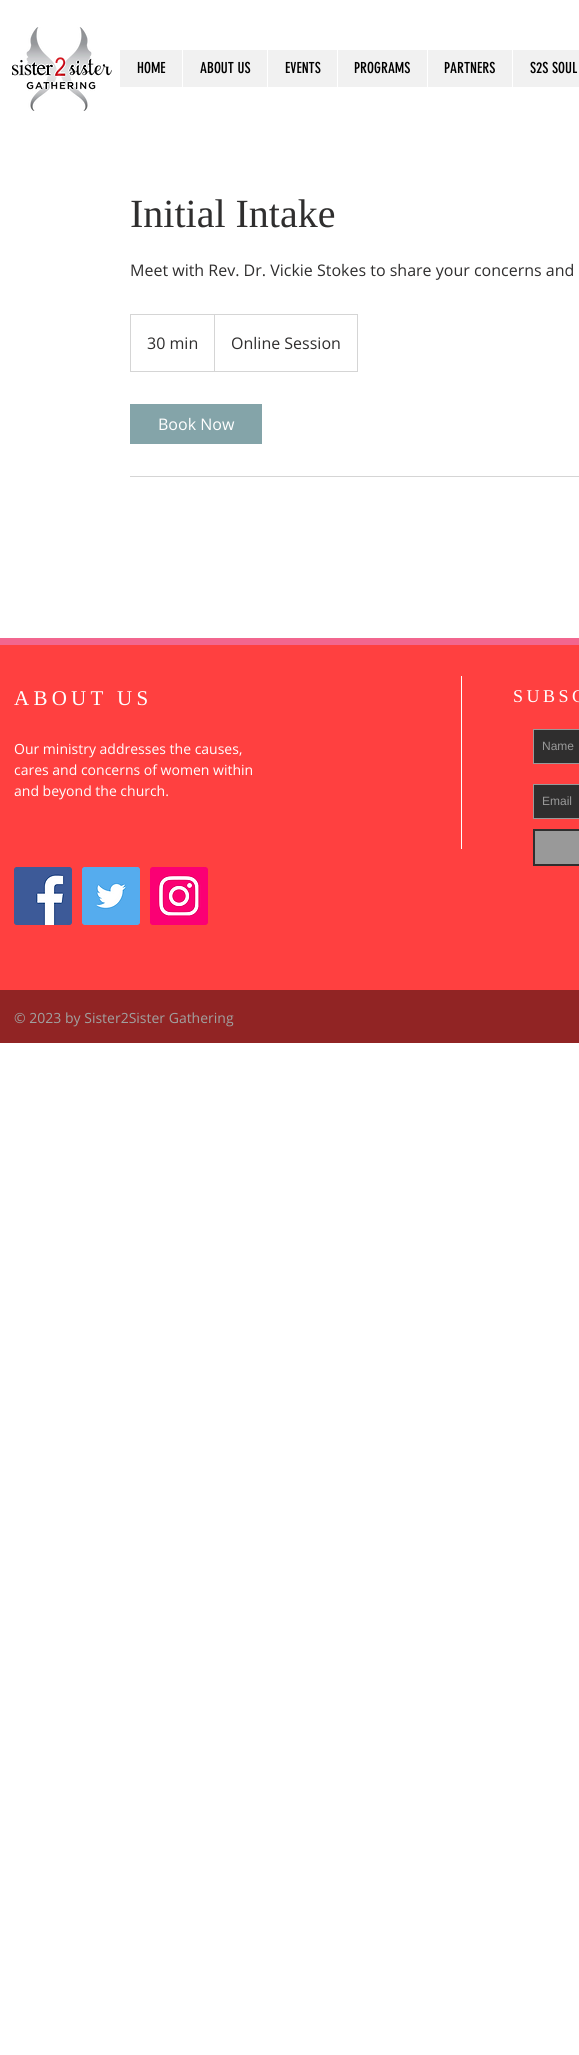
#include <cairo/cairo.h>
#include <math.h>
#include <stddef.h>

typedef struct { double x, y; const char *s; } line_t;
typedef struct { double x, y, w, h; unsigned color; } box_t;
static cairo_t *cr;

static void rgb(unsigned color)
{
	cairo_set_source_rgb(cr, (color >> 16) / 255.0, (color >> 8 & 255) / 255.0, (color & 255) / 255.0);
}

static void tracked(double x, double y, const char *s, double letter, double word)
{
	cairo_move_to(cr, x, y);
	while (*s) {
		char ch[5] = {0};
		int n = 0;
		do ch[n++] = *s++; while ((*s & 0xC0) == 0x80);
		cairo_show_text(cr, ch);
		cairo_rel_move_to(cr, letter + word * (*ch == ' '), 0);
	}
}

static void image(const char *path, double x, double y, double w, double h)
{
	cairo_surface_t *image = cairo_image_surface_create_from_png(path);
	cairo_save(cr);
	cairo_set_source_surface(cr, image, x, y);
	cairo_rectangle(cr, x, y, w, h);
	cairo_fill(cr);
	cairo_restore(cr);
	cairo_surface_destroy(image);
}

int main(void) {
	cairo_surface_t *surface = cairo_image_surface_create(CAIRO_FORMAT_RGB24, 579, 2055);
	cr = cairo_create(surface);
	cairo_font_options_t *options = cairo_font_options_create();
	cairo_font_options_set_hint_metrics(options, CAIRO_HINT_METRICS_OFF);
	cairo_font_options_set_hint_style(options, CAIRO_HINT_STYLE_NONE);
	cairo_set_font_options(cr, options);
	cairo_set_miter_limit(cr, 4);
	rgb(0xffffff);
	cairo_paint(cr);
	image("img/1.png", 12, 27, 100, 84);
	{
		static const box_t items[] = {
			{120, 50, 459, 37, 0xf1f1f1},
			{182, 50, 1, 37, 0xffffff},
			{267, 50, 1, 37, 0xffffff},
			{337, 50, 1, 37, 0xffffff},
			{427, 50, 1, 37, 0xffffff},
			{512, 50, 1, 37, 0xffffff},
		};
		for (size_t i = 0; i < sizeof items / sizeof *items; i++) {
			rgb(items[i].color);
			cairo_rectangle(cr, items[i].x, items[i].y, items[i].w, items[i].h);
			cairo_fill(cr);
		}
	}
	cairo_rectangle(cr, 130.5, 314.5, 227, 57);
	rgb(0xd5d5d5);
	cairo_set_line_width(cr, 1);
	cairo_stroke(cr);
	cairo_new_path(cr);
	cairo_move_to(cr, 214, 371);
	cairo_line_to(cr, 214, 314);
	cairo_line_to(cr, 215, 315);
	cairo_line_to(cr, 215, 371);
	cairo_close_path(cr);
	cairo_fill(cr);
	{
		static const box_t items[] = {
			{130, 404, 132, 40, 0x84a4a9},
			{130, 476, 449, 1, 0xd5d5d5},
			{0, 645, 579, 345, 0xff4040},
			{0, 638, 579, 7, 0xf2668f},
			{461, 676, 1, 173, 0xffffff},
		};
		for (size_t i = 0; i < sizeof items / sizeof *items; i++) {
			rgb(items[i].color);
			cairo_rectangle(cr, items[i].x, items[i].y, items[i].w, items[i].h);
			cairo_fill(cr);
		}
	}
	rgb(0x2f2e2e);
	cairo_rectangle(cr, 533.5, 729.5, 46, 34);
	cairo_fill_preserve(cr);
	rgb(0x999999);
	cairo_stroke(cr);
	rgb(0x2f2e2e);
	cairo_rectangle(cr, 533.5, 784.5, 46, 34);
	cairo_fill_preserve(cr);
	rgb(0x999999);
	cairo_stroke(cr);
	cairo_rectangle(cr, 534, 830, 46, 35);
	cairo_fill_preserve(cr);
	rgb(0x2f2e2e);
	cairo_set_line_width(cr, 2);
	cairo_stroke(cr);
	image("img/2.png", 14, 867, 58, 58);
	image("img/3.png", 82, 867, 58, 58);
	image("img/4.png", 150, 867, 58, 58);
	rgb(0x912424);
	cairo_rectangle(cr, 0, 990, 579, 53);
	cairo_fill(cr);
	cairo_select_font_face(cr, "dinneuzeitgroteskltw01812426", CAIRO_FONT_SLANT_NORMAL, CAIRO_FONT_WEIGHT_NORMAL);
	cairo_set_font_size(cr, 15);
	rgb(0x000000);
	{
		static const line_t items[] = {
			{137, 73, "HOME"},
			{200, 73, "ABOUT US"},
			{285, 73, "EVENTS"},
			{354, 73, "PROGRAMS"},
			{444, 73, "PARTNERS"},
			{530, 73, "S2S SOUL"},
		};
		for (size_t i = 0; i < sizeof items / sizeof *items; i++) {
			cairo_move_to(cr, items[i].x, items[i].y);
			cairo_show_text(cr, items[i].s);
		}
	}
	cairo_select_font_face(cr, "Liberation Serif", CAIRO_FONT_SLANT_NORMAL, CAIRO_FONT_WEIGHT_NORMAL);
	cairo_set_font_size(cr, 40);
	rgb(0x2f2e2e);
	cairo_move_to(cr, 130, 227);
	cairo_show_text(cr, "Initial Intake");
	cairo_select_font_face(cr, "Open Sans", CAIRO_FONT_SLANT_NORMAL, CAIRO_FONT_WEIGHT_NORMAL);
	cairo_set_font_size(cr, 16);
	{
		static const line_t items[] = {
			{130, 276, "Meet with Rev. Dr. Vickie Stokes to share your concerns and"},
			{147, 349, "30 min"},
			{231, 349, "Online Session"},
		};
		for (size_t i = 0; i < sizeof items / sizeof *items; i++) {
			cairo_move_to(cr, items[i].x, items[i].y);
			cairo_show_text(cr, items[i].s);
		}
	}
	rgb(0xffffff);
	cairo_move_to(cr, 158, 430);
	cairo_show_text(cr, "Book Now");
	cairo_select_font_face(cr, "Liberation Serif", CAIRO_FONT_SLANT_NORMAL, CAIRO_FONT_WEIGHT_NORMAL);
	cairo_set_font_size(cr, 21);
	tracked(14, 705, "ABOUT US", 4.25, 0);
	cairo_set_font_size(cr, 18);
	tracked(513, 702, "SUBSC", 3.5, 0);
	cairo_select_font_face(cr, "Open Sans", CAIRO_FONT_SLANT_NORMAL, CAIRO_FONT_WEIGHT_NORMAL);
	cairo_set_font_size(cr, 14);
	{
		static const line_t items[] = {
			{14, 754, "Our ministry addresses the causes,"},
			{14, 775, "cares and concerns of women within"},
			{14, 796, "and beyond the church."},
		};
		for (size_t i = 0; i < sizeof items / sizeof *items; i++) {
			cairo_move_to(cr, items[i].x, items[i].y);
			cairo_show_text(cr, items[i].s);
		}
	}
	cairo_select_font_face(cr, "Liberation Sans", CAIRO_FONT_SLANT_NORMAL, CAIRO_FONT_WEIGHT_NORMAL);
	cairo_set_font_size(cr, 12);
	rgb(0x999999);
	cairo_move_to(cr, 542, 750);
	cairo_show_text(cr, "Name");
	cairo_move_to(cr, 542, 805);
	cairo_show_text(cr, "Email");
	cairo_select_font_face(cr, "Open Sans", CAIRO_FONT_SLANT_NORMAL, CAIRO_FONT_WEIGHT_NORMAL);
	cairo_set_font_size(cr, 14);
	rgb(0xa0a09f);
	cairo_move_to(cr, 14, 1023);
	cairo_show_text(cr, "© 2023 by Sister2Sister Gathering");
	cairo_surface_write_to_png(surface, "page.png");
	cairo_font_options_destroy(options);
	cairo_destroy(cr);
	cairo_surface_destroy(surface);
	return 0;
}
